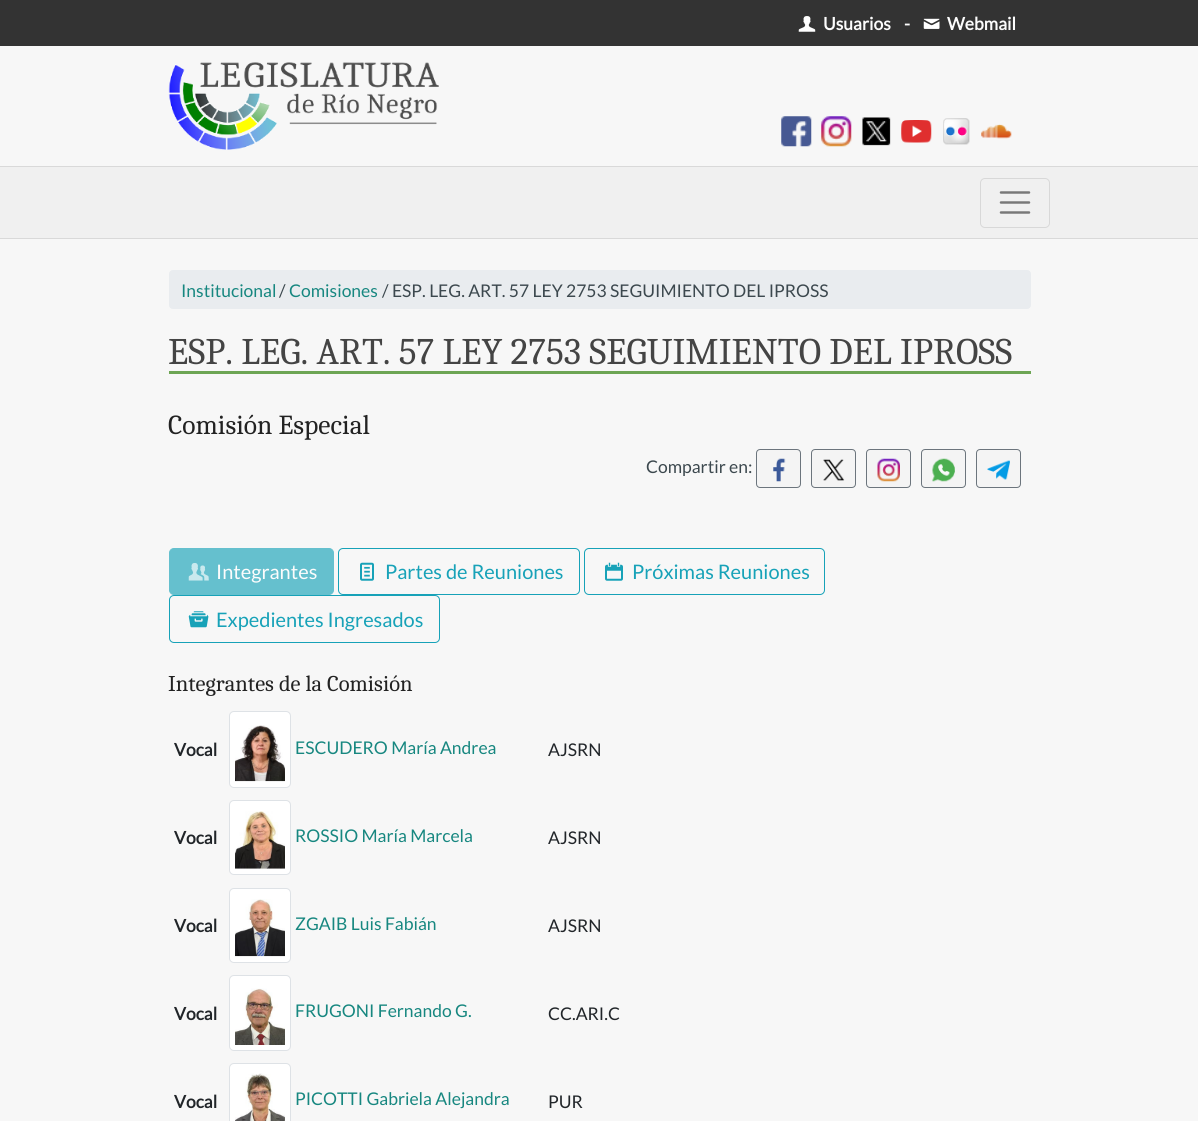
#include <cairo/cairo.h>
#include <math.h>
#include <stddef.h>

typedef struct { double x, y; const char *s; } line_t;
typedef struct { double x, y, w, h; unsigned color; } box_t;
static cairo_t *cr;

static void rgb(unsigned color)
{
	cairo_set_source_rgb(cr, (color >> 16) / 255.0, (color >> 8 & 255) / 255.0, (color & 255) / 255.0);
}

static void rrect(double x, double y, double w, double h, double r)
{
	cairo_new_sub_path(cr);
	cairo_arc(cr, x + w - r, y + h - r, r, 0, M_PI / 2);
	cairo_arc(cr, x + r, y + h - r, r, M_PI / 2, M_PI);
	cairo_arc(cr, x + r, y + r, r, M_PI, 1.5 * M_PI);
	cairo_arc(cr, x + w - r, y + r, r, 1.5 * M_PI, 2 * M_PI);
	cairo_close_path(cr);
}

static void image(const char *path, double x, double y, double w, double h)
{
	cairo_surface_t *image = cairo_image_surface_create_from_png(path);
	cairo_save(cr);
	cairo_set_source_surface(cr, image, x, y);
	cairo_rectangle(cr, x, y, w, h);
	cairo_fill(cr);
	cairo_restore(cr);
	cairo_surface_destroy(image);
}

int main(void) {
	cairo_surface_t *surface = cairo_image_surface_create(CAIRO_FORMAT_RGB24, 1198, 1121);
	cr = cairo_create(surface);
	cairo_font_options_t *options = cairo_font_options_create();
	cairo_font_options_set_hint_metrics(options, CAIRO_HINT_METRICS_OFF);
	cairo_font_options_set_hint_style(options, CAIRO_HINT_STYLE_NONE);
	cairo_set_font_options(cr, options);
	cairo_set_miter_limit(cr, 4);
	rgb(0xf7f7f7);
	cairo_paint(cr);
	rgb(0x333333);
	cairo_rectangle(cr, 0, 0, 1198, 46);
	cairo_fill(cr);
	image("img/1.png", 798, 16, 18, 16);
	image("img/2.png", 923, 18, 17, 11);
	image("img/3.png", 168, 62, 271, 88);
	image("img/4.png", 781, 116, 31, 31);
	image("img/5.png", 821, 116, 31, 31);
	image("img/6.png", 862, 117, 29, 29);
	image("img/7.png", 901, 120, 31, 23);
	image("img/8.png", 943, 118, 27, 27);
	image("img/9.png", 981, 124, 31, 15);
	{
		static const box_t items[] = {
			{0, 167, 1198, 71, 0xf0f0f0},
			{0, 166, 1198, 1, 0xd9d9d9},
			{0, 238, 1198, 1, 0xd9d9d9},
		};
		for (size_t i = 0; i < sizeof items / sizeof *items; i++) {
			rgb(items[i].color);
			cairo_rectangle(cr, items[i].x, items[i].y, items[i].w, items[i].h);
			cairo_fill(cr);
		}
	}
	rrect(980.5, 178.5, 69, 49, 4.5);
	rgb(0xd8d8d8);
	cairo_set_line_width(cr, 1);
	cairo_stroke(cr);
	cairo_new_path(cr);
	cairo_move_to(cr, 1001, 192.5);
	cairo_line_to(cr, 1029, 192.5);
	cairo_move_to(cr, 1001, 202.5);
	cairo_line_to(cr, 1029, 202.5);
	cairo_move_to(cr, 1001, 212.5);
	cairo_line_to(cr, 1029, 212.5);
	rgb(0x787878);
	cairo_set_line_width(cr, 2.5);
	cairo_set_line_cap(cr, CAIRO_LINE_CAP_ROUND);
	cairo_stroke(cr);
	rgb(0xe9ecef);
	rrect(169, 270, 862, 39, 4);
	cairo_fill(cr);
	rgb(0x6da554);
	cairo_rectangle(cr, 169, 371, 862, 3);
	cairo_fill(cr);
	rgb(0xf4f4f4);
	rrect(756.5, 449.5, 44, 38, 3.5);
	cairo_fill_preserve(cr);
	rgb(0x6c757d);
	cairo_set_line_width(cr, 1);
	cairo_set_line_cap(cr, CAIRO_LINE_CAP_BUTT);
	cairo_stroke(cr);
	image("img/10.png", 773, 458, 13, 24);
	rgb(0xf4f4f4);
	rrect(811.5, 449.5, 44, 38, 3.5);
	cairo_fill_preserve(cr);
	rgb(0x6c757d);
	cairo_stroke(cr);
	image("img/11.png", 823, 459, 22, 22);
	rgb(0xf4f4f4);
	rrect(866.5, 449.5, 44, 38, 3.5);
	cairo_fill_preserve(cr);
	rgb(0x6c757d);
	cairo_stroke(cr);
	image("img/12.png", 877, 458, 23, 24);
	rgb(0xf4f4f4);
	rrect(921.5, 449.5, 44, 38, 3.5);
	cairo_fill_preserve(cr);
	rgb(0x6c757d);
	cairo_stroke(cr);
	image("img/13.png", 932, 458, 23, 24);
	rgb(0xf4f4f4);
	rrect(976.5, 449.5, 44, 38, 3.5);
	cairo_fill_preserve(cr);
	rgb(0x6c757d);
	cairo_stroke(cr);
	image("img/14.png", 987, 460, 23, 20);
	rgb(0x65c0ce);
	rrect(169.5, 548.5, 164, 46, 4.5);
	cairo_fill_preserve(cr);
	cairo_stroke(cr);
	image("img/15.png", 188, 563, 21, 18);
	rrect(338.5, 548.5, 241, 46, 4.5);
	rgb(0x17a2b8);
	cairo_stroke(cr);
	image("img/16.png", 360, 562, 14, 19);
	rrect(584.5, 548.5, 240, 46, 4.5);
	cairo_stroke(cr);
	image("img/17.png", 605, 562, 18, 19);
	rrect(169.5, 595.5, 270, 47, 4.5);
	cairo_stroke(cr);
	image("img/18.png", 188, 611, 21, 17);
	rgb(0xffffff);
	rrect(229.5, 711.5, 61, 76, 4.5);
	cairo_fill_preserve(cr);
	rgb(0xdee2e6);
	cairo_stroke(cr);
	image("img/19.png", 235, 725, 50, 57);
	rgb(0xffffff);
	rrect(229.5, 800.5, 61, 74, 4.5);
	cairo_fill_preserve(cr);
	rgb(0xdee2e6);
	cairo_stroke(cr);
	image("img/20.png", 235, 811, 50, 58);
	rgb(0xffffff);
	rrect(229.5, 888.5, 61, 74, 4.5);
	cairo_fill_preserve(cr);
	rgb(0xdee2e6);
	cairo_stroke(cr);
	image("img/21.png", 235, 899, 50, 58);
	rgb(0xffffff);
	rrect(229.5, 975.5, 61, 75, 4.5);
	cairo_fill_preserve(cr);
	rgb(0xdee2e6);
	cairo_stroke(cr);
	image("img/22.png", 235, 988, 50, 57);
	rgb(0xffffff);
	rrect(229.5, 1063.5, 61, 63, 4.5);
	cairo_fill_preserve(cr);
	rgb(0xdee2e6);
	cairo_stroke(cr);
	image("img/23.png", 235, 1073, 50, 48);
	cairo_select_font_face(cr, "Lato", CAIRO_FONT_SLANT_NORMAL, CAIRO_FONT_WEIGHT_BOLD);
	cairo_set_font_size(cr, 17.5);
	rgb(0xfcfcfc);
	{
		static const line_t items[] = {
			{823, 30, "Usuarios"},
			{904, 30, "-"},
			{947, 30, "Webmail"},
		};
		for (size_t i = 0; i < sizeof items / sizeof *items; i++) {
			cairo_move_to(cr, items[i].x, items[i].y);
			cairo_show_text(cr, items[i].s);
		}
	}
	cairo_select_font_face(cr, "Lato", CAIRO_FONT_SLANT_NORMAL, CAIRO_FONT_WEIGHT_NORMAL);
	rgb(0x178780);
	cairo_move_to(cr, 181, 297);
	cairo_show_text(cr, "Institucional");
	rgb(0x3c484e);
	cairo_move_to(cr, 279, 297);
	cairo_show_text(cr, "/");
	rgb(0x178780);
	cairo_move_to(cr, 289, 297);
	cairo_show_text(cr, "Comisiones");
	rgb(0x3c484e);
	cairo_move_to(cr, 382, 297);
	cairo_show_text(cr, "/ ESP. LEG. ART. 57 LEY 2753 SEGUIMIENTO DEL IPROSS");
	cairo_select_font_face(cr, "Caladea", CAIRO_FONT_SLANT_NORMAL, CAIRO_FONT_WEIGHT_NORMAL);
	cairo_set_font_size(cr, 37.5);
	rgb(0x444444);
	cairo_move_to(cr, 168, 364);
	cairo_show_text(cr, "ESP. LEG. ART. 57 LEY 2753 SEGUIMIENTO DEL IPROSS");
	cairo_set_font_size(cr, 27.5);
	rgb(0x222222);
	cairo_move_to(cr, 168, 434);
	cairo_show_text(cr, "Comisión Especial");
	cairo_select_font_face(cr, "Lato", CAIRO_FONT_SLANT_NORMAL, CAIRO_FONT_WEIGHT_NORMAL);
	cairo_set_font_size(cr, 17.5);
	rgb(0x3c484e);
	cairo_move_to(cr, 646, 473);
	cairo_show_text(cr, "Compartir en:");
	cairo_set_font_size(cr, 20);
	rgb(0xfcfcfc);
	cairo_move_to(cr, 216, 579);
	cairo_show_text(cr, "Integrantes");
	rgb(0x17a2b8);
	{
		static const line_t items[] = {
			{385, 579, "Partes de Reuniones"},
			{632, 579, "Próximas Reuniones"},
			{216, 627, "Expedientes Ingresados"},
		};
		for (size_t i = 0; i < sizeof items / sizeof *items; i++) {
			cairo_move_to(cr, items[i].x, items[i].y);
			cairo_show_text(cr, items[i].s);
		}
	}
	cairo_select_font_face(cr, "Caladea", CAIRO_FONT_SLANT_NORMAL, CAIRO_FONT_WEIGHT_NORMAL);
	cairo_set_font_size(cr, 22.5);
	rgb(0x222222);
	cairo_move_to(cr, 168, 691);
	cairo_show_text(cr, "Integrantes de la Comisión");
	cairo_select_font_face(cr, "Lato", CAIRO_FONT_SLANT_NORMAL, CAIRO_FONT_WEIGHT_BOLD);
	cairo_set_font_size(cr, 17.5);
	rgb(0x212529);
	cairo_move_to(cr, 174, 756);
	cairo_show_text(cr, "Vocal");
	cairo_select_font_face(cr, "Lato", CAIRO_FONT_SLANT_NORMAL, CAIRO_FONT_WEIGHT_NORMAL);
	rgb(0x178780);
	cairo_move_to(cr, 295, 754);
	cairo_show_text(cr, "ESCUDERO María Andrea");
	rgb(0x212529);
	cairo_move_to(cr, 548, 756);
	cairo_show_text(cr, "AJSRN");
	cairo_select_font_face(cr, "Lato", CAIRO_FONT_SLANT_NORMAL, CAIRO_FONT_WEIGHT_BOLD);
	cairo_move_to(cr, 174, 844);
	cairo_show_text(cr, "Vocal");
	cairo_select_font_face(cr, "Lato", CAIRO_FONT_SLANT_NORMAL, CAIRO_FONT_WEIGHT_NORMAL);
	rgb(0x178780);
	cairo_move_to(cr, 295, 842);
	cairo_show_text(cr, "ROSSIO María Marcela");
	rgb(0x212529);
	cairo_move_to(cr, 548, 844);
	cairo_show_text(cr, "AJSRN");
	cairo_select_font_face(cr, "Lato", CAIRO_FONT_SLANT_NORMAL, CAIRO_FONT_WEIGHT_BOLD);
	cairo_move_to(cr, 174, 932);
	cairo_show_text(cr, "Vocal");
	cairo_select_font_face(cr, "Lato", CAIRO_FONT_SLANT_NORMAL, CAIRO_FONT_WEIGHT_NORMAL);
	rgb(0x178780);
	cairo_move_to(cr, 295, 930);
	cairo_show_text(cr, "ZGAIB Luis Fabián");
	rgb(0x212529);
	cairo_move_to(cr, 548, 932);
	cairo_show_text(cr, "AJSRN");
	cairo_select_font_face(cr, "Lato", CAIRO_FONT_SLANT_NORMAL, CAIRO_FONT_WEIGHT_BOLD);
	cairo_move_to(cr, 174, 1020);
	cairo_show_text(cr, "Vocal");
	cairo_select_font_face(cr, "Lato", CAIRO_FONT_SLANT_NORMAL, CAIRO_FONT_WEIGHT_NORMAL);
	rgb(0x178780);
	cairo_move_to(cr, 295, 1017);
	cairo_show_text(cr, "FRUGONI Fernando G.");
	rgb(0x212529);
	cairo_move_to(cr, 548, 1020);
	cairo_show_text(cr, "CC.ARI.C");
	cairo_select_font_face(cr, "Lato", CAIRO_FONT_SLANT_NORMAL, CAIRO_FONT_WEIGHT_BOLD);
	cairo_move_to(cr, 174, 1108);
	cairo_show_text(cr, "Vocal");
	cairo_select_font_face(cr, "Lato", CAIRO_FONT_SLANT_NORMAL, CAIRO_FONT_WEIGHT_NORMAL);
	rgb(0x178780);
	cairo_move_to(cr, 295, 1105);
	cairo_show_text(cr, "PICOTTI Gabriela Alejandra");
	rgb(0x212529);
	cairo_move_to(cr, 548, 1108);
	cairo_show_text(cr, "PUR");
	cairo_surface_write_to_png(surface, "page.png");
	cairo_font_options_destroy(options);
	cairo_destroy(cr);
	cairo_surface_destroy(surface);
	return 0;
}
